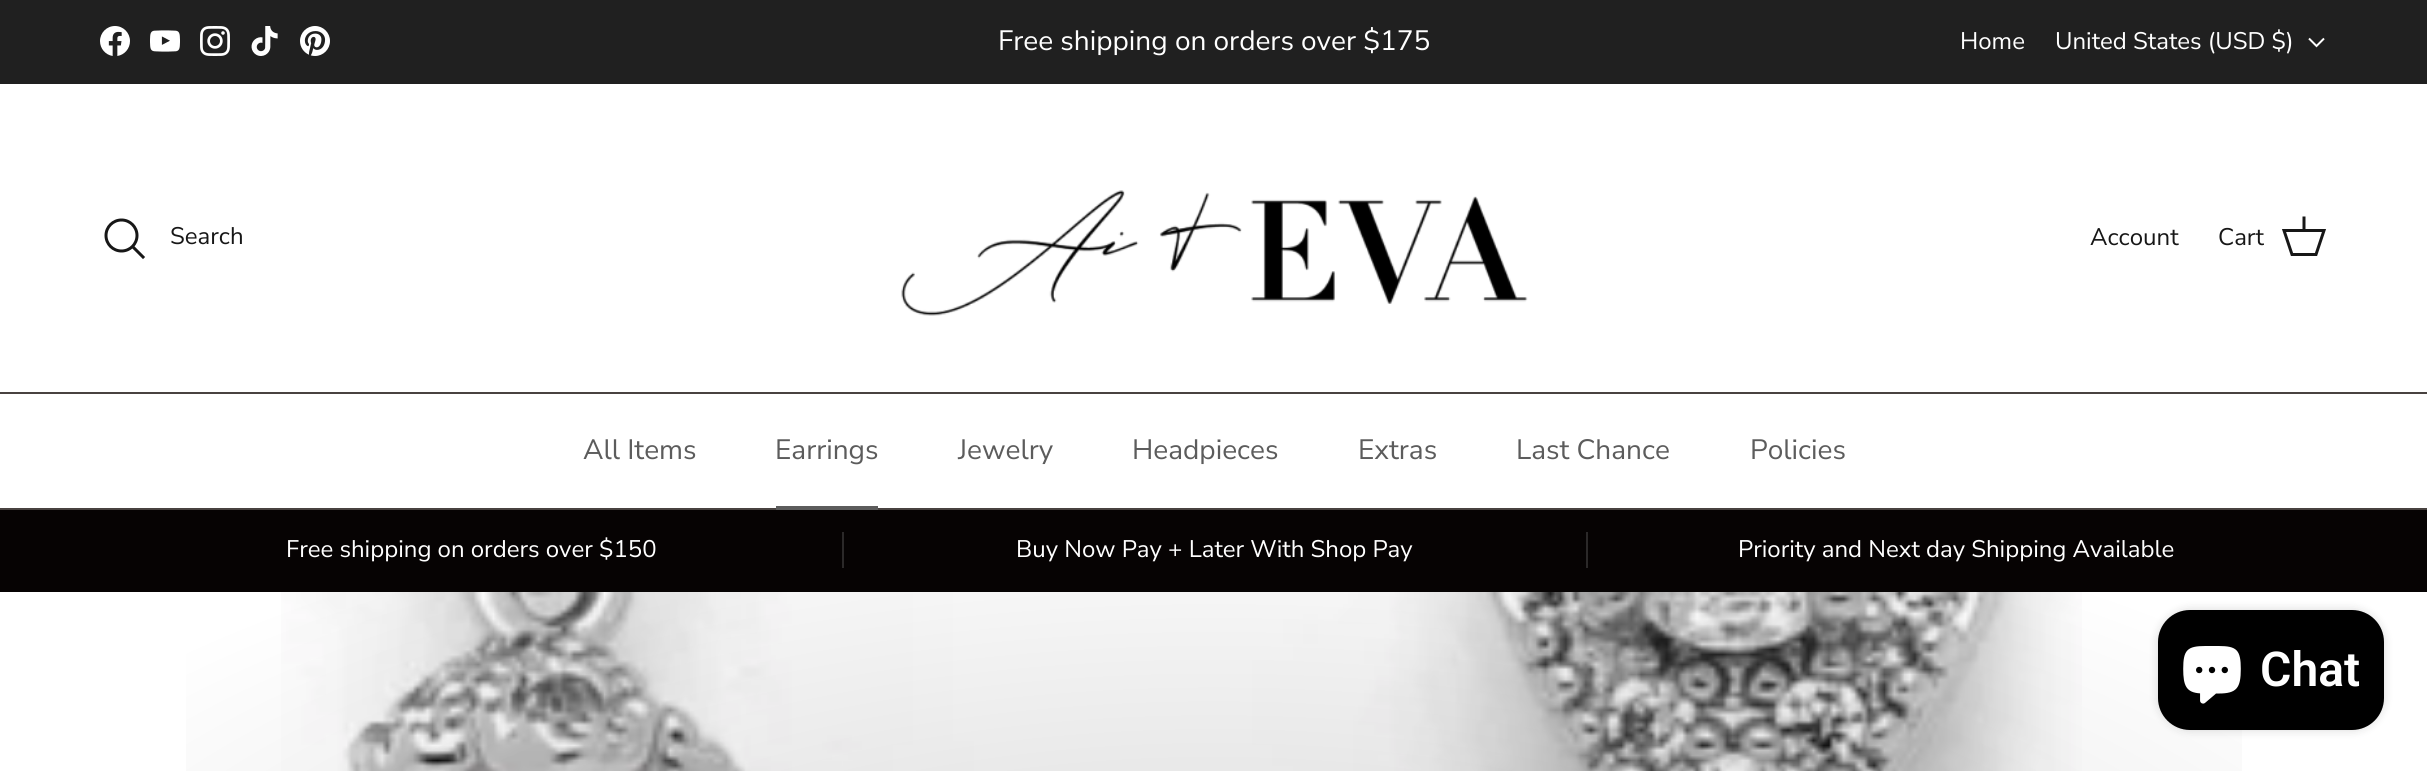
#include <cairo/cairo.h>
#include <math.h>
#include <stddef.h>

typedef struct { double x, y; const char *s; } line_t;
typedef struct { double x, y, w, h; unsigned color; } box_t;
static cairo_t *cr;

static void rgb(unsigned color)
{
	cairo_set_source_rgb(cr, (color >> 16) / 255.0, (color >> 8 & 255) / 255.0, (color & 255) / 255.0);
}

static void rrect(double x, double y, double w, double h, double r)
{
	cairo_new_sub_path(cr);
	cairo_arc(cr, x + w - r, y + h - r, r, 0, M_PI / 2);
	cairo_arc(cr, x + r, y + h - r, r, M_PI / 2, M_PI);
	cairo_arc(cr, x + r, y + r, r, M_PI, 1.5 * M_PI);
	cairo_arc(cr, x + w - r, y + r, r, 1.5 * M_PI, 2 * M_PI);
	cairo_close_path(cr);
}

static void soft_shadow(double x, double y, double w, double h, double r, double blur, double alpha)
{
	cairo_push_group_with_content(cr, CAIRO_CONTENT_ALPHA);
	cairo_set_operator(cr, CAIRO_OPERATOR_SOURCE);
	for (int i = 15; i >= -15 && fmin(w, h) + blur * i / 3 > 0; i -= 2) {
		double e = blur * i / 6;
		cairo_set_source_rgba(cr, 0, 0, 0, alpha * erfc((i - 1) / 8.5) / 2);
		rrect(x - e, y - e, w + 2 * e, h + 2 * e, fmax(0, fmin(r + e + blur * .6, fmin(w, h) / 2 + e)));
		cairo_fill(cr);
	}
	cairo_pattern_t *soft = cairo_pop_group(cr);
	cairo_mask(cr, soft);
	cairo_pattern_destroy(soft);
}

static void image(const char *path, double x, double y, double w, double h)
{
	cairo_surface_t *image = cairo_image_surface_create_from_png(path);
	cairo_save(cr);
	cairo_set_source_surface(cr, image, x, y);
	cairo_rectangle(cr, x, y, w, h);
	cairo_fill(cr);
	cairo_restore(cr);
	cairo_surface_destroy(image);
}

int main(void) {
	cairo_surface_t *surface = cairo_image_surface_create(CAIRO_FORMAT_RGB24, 2427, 771);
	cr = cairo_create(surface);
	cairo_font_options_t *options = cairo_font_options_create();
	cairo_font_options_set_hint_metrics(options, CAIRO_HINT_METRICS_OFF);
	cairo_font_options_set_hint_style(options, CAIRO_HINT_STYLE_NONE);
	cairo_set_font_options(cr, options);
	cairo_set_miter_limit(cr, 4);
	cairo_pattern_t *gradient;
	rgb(0xffffff);
	cairo_paint(cr);
	rgb(0x202020);
	cairo_rectangle(cr, 0, 0, 2427, 84);
	cairo_fill(cr);
	image("img/1.png", 100, 26, 30, 30);
	image("img/2.png", 150, 30, 30, 22);
	image("img/3.png", 200, 26, 30, 30);
	image("img/4.png", 251, 26, 27, 30);
	image("img/5.png", 300, 26, 30, 30);
	cairo_new_path(cr);
	cairo_move_to(cr, 2324, 38.5);
	cairo_line_to(cr, 2316.5, 46);
	cairo_line_to(cr, 2309, 38.5);
	rgb(0xffffff);
	cairo_stroke(cr);
	rgb(0x484240);
	cairo_rectangle(cr, 0, 392, 2427, 2);
	cairo_fill(cr);
	cairo_arc(cr, 121.5, 235.5, 15.5, 0, 2 * M_PI);
	rgb(0x171717);
	cairo_set_line_width(cr, 3);
	cairo_stroke(cr);
	cairo_new_path(cr);
	cairo_move_to(cr, 134, 248);
	cairo_line_to(cr, 143, 257);
	cairo_set_line_cap(cr, CAIRO_LINE_CAP_SQUARE);
	cairo_stroke(cr);
	image("img/6.png", 901, 190, 627, 126);
	cairo_new_path(cr);
	cairo_move_to(cr, 2284, 230.5);
	cairo_line_to(cr, 2324, 230.5);
	cairo_line_to(cr, 2316, 254.5);
	cairo_line_to(cr, 2292, 254.5);
	cairo_close_path(cr);
	cairo_set_line_cap(cr, CAIRO_LINE_CAP_BUTT);
	cairo_stroke(cr);
	cairo_new_path(cr);
	cairo_move_to(cr, 2304, 230);
	cairo_line_to(cr, 2304, 218);
	cairo_set_line_cap(cr, CAIRO_LINE_CAP_SQUARE);
	cairo_stroke(cr);
	{
		static const box_t items[] = {
			{0, 508, 2427, 2, 0x484240},
			{776, 506, 102, 4, 0x5c5c5c},
			{0, 510, 2427, 82, 0x060303},
			{842, 532, 2, 36, 0x2b2929},
			{1586, 532, 2, 36, 0x2b2929},
		};
		for (size_t i = 0; i < sizeof items / sizeof *items; i++) {
			rgb(items[i].color);
			cairo_rectangle(cr, items[i].x, items[i].y, items[i].w, items[i].h);
			cairo_fill(cr);
		}
	}
	image("img/7.png", 281, 592, 1801, 179);
	gradient = cairo_pattern_create_radial(0, 0, 0, 0, 0, 1);
	cairo_pattern_set_matrix(gradient, &(cairo_matrix_t){1.0 / 2000, 0, 0, 1.0 / 812, -1.0 * 1214 / 2000, -1.0 * 1026 / 812});
	cairo_pattern_add_color_stop_rgba(gradient, 0, 0, 0, 0, 0.16);
	cairo_pattern_add_color_stop_rgba(gradient, 0.7, 0, 0, 0, 0);
	cairo_set_source(cr, gradient);
	cairo_pattern_destroy(gradient);
	cairo_rectangle(cr, 186, 592, 2056, 179);
	cairo_fill(cr);
	rgb(0x000000);
	soft_shadow(2158, 610, 226, 120, 32, 5, 0.15);
	rgb(0x000000);
	rrect(2158, 610, 226, 120, 32);
	cairo_fill(cr);
	image("img/8.png", 2183, 646, 58, 58);
	cairo_select_font_face(cr, "Nunito Sans", CAIRO_FONT_SLANT_NORMAL, CAIRO_FONT_WEIGHT_NORMAL);
	cairo_set_font_size(cr, 28);
	rgb(0xffffff);
	cairo_move_to(cr, 998, 50);
	cairo_show_text(cr, "Free shipping on orders over $175");
	cairo_set_font_size(cr, 24);
	cairo_move_to(cr, 1960, 49);
	cairo_show_text(cr, "Home");
	cairo_move_to(cr, 2055, 49);
	cairo_show_text(cr, "United States (USD $)");
	rgb(0x171717);
	{
		static const line_t items[] = {
			{170, 244, "Search"},
			{2090, 245, "Account"},
			{2218, 245, "Cart"},
		};
		for (size_t i = 0; i < sizeof items / sizeof *items; i++) {
			cairo_move_to(cr, items[i].x, items[i].y);
			cairo_show_text(cr, items[i].s);
		}
	}
	cairo_set_font_size(cr, 28);
	rgb(0x5c5c5c);
	{
		static const line_t items[] = {
			{583, 459, "All Items"},
			{775, 459, "Earrings"},
			{958, 459, "Jewelry"},
			{1132, 459, "Headpieces"},
			{1358, 459, "Extras"},
			{1516, 459, "Last Chance"},
			{1750, 459, "Policies"},
		};
		for (size_t i = 0; i < sizeof items / sizeof *items; i++) {
			cairo_move_to(cr, items[i].x, items[i].y);
			cairo_show_text(cr, items[i].s);
		}
	}
	cairo_set_font_size(cr, 24);
	rgb(0xffffff);
	{
		static const line_t items[] = {
			{286, 557, "Free shipping on orders over $150"},
			{1016, 557, "Buy Now Pay + Later With Shop Pay"},
			{1738, 557, "Priority and Next day Shipping Available"},
		};
		for (size_t i = 0; i < sizeof items / sizeof *items; i++) {
			cairo_move_to(cr, items[i].x, items[i].y);
			cairo_show_text(cr, items[i].s);
		}
	}
	cairo_select_font_face(cr, "Roboto SemiBold", CAIRO_FONT_SLANT_NORMAL, CAIRO_FONT_WEIGHT_NORMAL);
	cairo_set_font_size(cr, 48);
	cairo_move_to(cr, 2260, 686);
	cairo_show_text(cr, "Chat");
	cairo_surface_write_to_png(surface, "page.png");
	cairo_font_options_destroy(options);
	cairo_destroy(cr);
	cairo_surface_destroy(surface);
	return 0;
}
